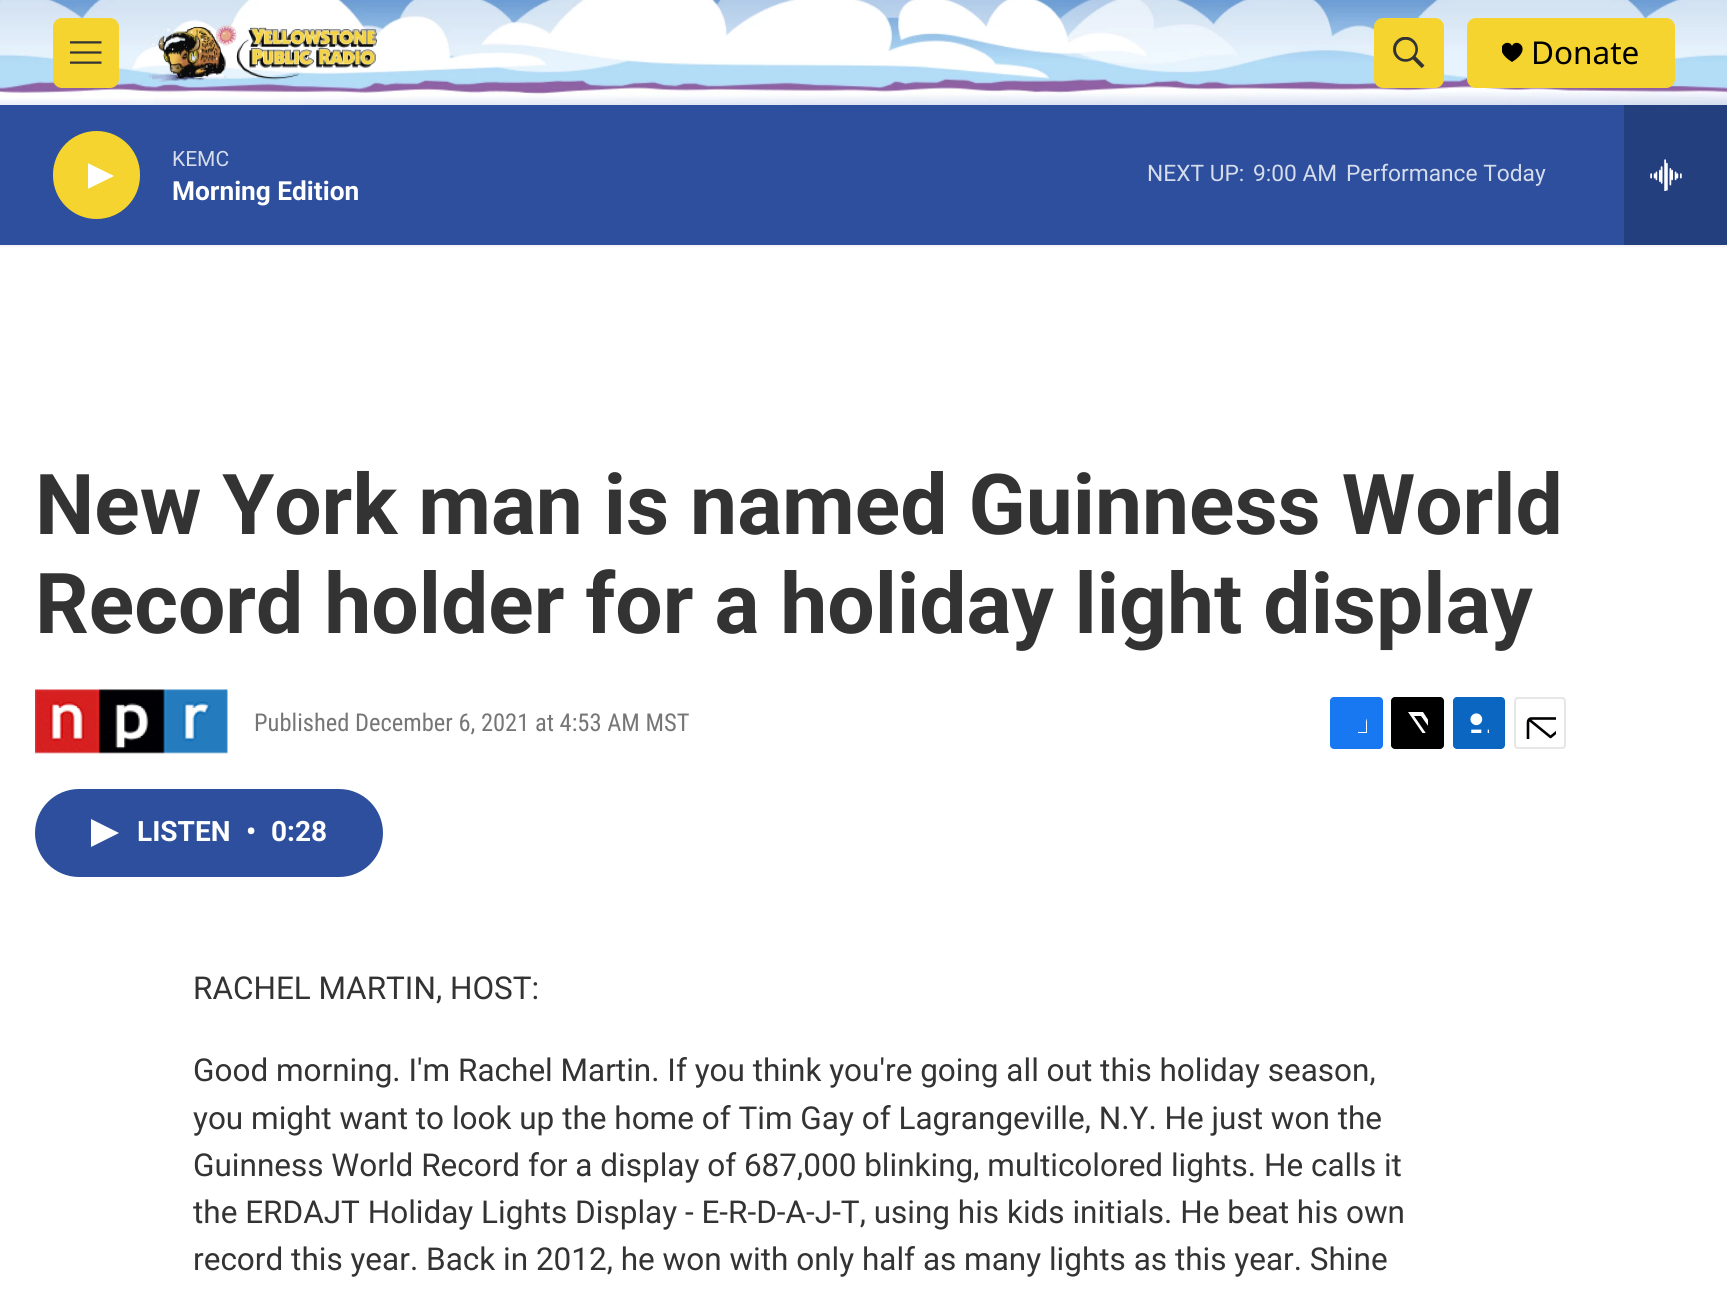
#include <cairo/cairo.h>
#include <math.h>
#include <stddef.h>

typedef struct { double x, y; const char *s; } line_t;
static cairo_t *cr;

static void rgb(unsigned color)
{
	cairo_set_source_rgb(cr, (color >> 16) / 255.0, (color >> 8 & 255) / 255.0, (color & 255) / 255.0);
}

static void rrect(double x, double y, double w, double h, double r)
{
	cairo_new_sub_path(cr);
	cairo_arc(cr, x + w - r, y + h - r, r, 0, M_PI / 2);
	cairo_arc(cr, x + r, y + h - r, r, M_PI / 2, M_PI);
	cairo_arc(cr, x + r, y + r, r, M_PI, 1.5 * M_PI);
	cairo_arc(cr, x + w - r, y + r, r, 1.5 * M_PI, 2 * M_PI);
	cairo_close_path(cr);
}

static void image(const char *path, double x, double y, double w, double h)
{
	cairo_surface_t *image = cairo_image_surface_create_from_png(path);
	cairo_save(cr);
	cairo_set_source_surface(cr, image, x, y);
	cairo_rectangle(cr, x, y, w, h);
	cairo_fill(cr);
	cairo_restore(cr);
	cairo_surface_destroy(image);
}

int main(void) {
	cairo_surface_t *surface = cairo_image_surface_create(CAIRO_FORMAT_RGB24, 1727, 1300);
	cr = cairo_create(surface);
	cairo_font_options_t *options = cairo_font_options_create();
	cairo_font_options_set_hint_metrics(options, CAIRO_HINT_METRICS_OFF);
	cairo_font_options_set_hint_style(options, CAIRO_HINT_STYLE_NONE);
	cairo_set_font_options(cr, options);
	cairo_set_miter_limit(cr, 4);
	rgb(0xffffff);
	cairo_paint(cr);
	rgb(0xf5f5f5);
	cairo_rectangle(cr, 0, 245, 1727, 2);
	cairo_fill(cr);
	image("img/1.png", 0, 0, 1727, 105);
	rgb(0xf6d430);
	rrect(53, 18, 66, 70, 9);
	cairo_fill(cr);
	image("img/2.png", 70, 41, 32, 23);
	image("img/3.png", 148, 24, 229, 58);
	rrect(1374, 18, 70, 70, 9);
	cairo_fill(cr);
	image("img/4.png", 1393, 37, 32, 31);
	rrect(1467, 18, 208, 70, 9);
	cairo_fill(cr);
	cairo_save(cr);
	cairo_rectangle(cr, 1502, 42, 21, 21);
	cairo_clip(cr);
	rgb(0x000000);
	cairo_new_path(cr);
	cairo_move_to(cr, 1512, 46);
	cairo_curve_to(cr, 1508.5, 37, 1490, 48.5, 1512, 62);
	cairo_curve_to(cr, 1534, 48.5, 1515.5, 37, 1512, 46);
	cairo_close_path(cr);
	cairo_fill(cr);
	cairo_restore(cr);
	rgb(0x2d4f9d);
	cairo_rectangle(cr, 0, 105, 1624, 140);
	cairo_fill(cr);
	rgb(0xf6d430);
	rrect(53, 131, 87, 88, 43.5);
	cairo_fill(cr);
	cairo_save(cr);
	cairo_rectangle(cr, 88, 159, 26, 34);
	cairo_clip(cr);
	rgb(0xffffff);
	cairo_new_path(cr);
	cairo_move_to(cr, 87.5, 163);
	cairo_line_to(cr, 114, 176);
	cairo_line_to(cr, 87.5, 189);
	cairo_close_path(cr);
	cairo_fill(cr);
	cairo_restore(cr);
	rgb(0x243f7e);
	cairo_rectangle(cr, 1624, 105, 103, 140);
	cairo_fill(cr);
	image("img/5.png", 1650, 159, 32, 32);
	image("img/6.png", 35, 689, 193, 65);
	rgb(0x1778f2);
	rrect(1330, 697, 53, 52, 4);
	cairo_fill(cr);
	cairo_save(cr);
	cairo_rectangle(cr, 1346, 712, 21, 21);
	cairo_clip(cr);
	rgb(0xffffff);
	cairo_new_path(cr);
	cairo_move_to(cr, 1375, 749);
	cairo_line_to(cr, 1366, 749);
	cairo_line_to(cr, 1366, 740);
	cairo_line_to(cr, 1358, 740);
	cairo_line_to(cr, 1358, 732);
	cairo_line_to(cr, 1366, 732);
	cairo_line_to(cr, 1366, 722);
	cairo_curve_to(cr, 1367, 713.5, 1375.5, 712, 1383, 713);
	cairo_line_to(cr, 1383, 721);
	cairo_curve_to(cr, 1373, 721, 1375, 724, 1375, 732);
	cairo_line_to(cr, 1383, 732);
	cairo_line_to(cr, 1382, 740);
	cairo_line_to(cr, 1375, 740);
	cairo_close_path(cr);
	cairo_fill(cr);
	cairo_restore(cr);
	rgb(0x000000);
	rrect(1391, 697, 53, 52, 4);
	cairo_fill(cr);
	cairo_save(cr);
	cairo_rectangle(cr, 1407, 712, 21, 21);
	cairo_clip(cr);
	rgb(0xffffff);
	cairo_new_path(cr);
	cairo_move_to(cr, 1438, 734);
	cairo_line_to(cr, 1444, 743);
	cairo_curve_to(cr, 1444, 744.5, 1444, 746, 1443.5, 747.5);
	cairo_line_to(cr, 1421, 716);
	cairo_line_to(cr, 1414, 716);
	cairo_line_to(cr, 1432, 742);
	cairo_line_to(cr, 1437, 749);
	cairo_line_to(cr, 1433.5, 749);
	cairo_line_to(cr, 1430, 744);
	cairo_line_to(cr, 1425.5, 749);
	cairo_line_to(cr, 1421.5, 749);
	cairo_line_to(cr, 1428, 741);
	cairo_line_to(cr, 1408, 712);
	cairo_line_to(cr, 1423, 712);
	cairo_line_to(cr, 1436, 732);
	cairo_line_to(cr, 1444, 722.5);
	cairo_line_to(cr, 1444, 727);
	cairo_close_path(cr);
	cairo_fill(cr);
	cairo_restore(cr);
	rgb(0x0a66c1);
	rrect(1453, 697, 52, 52, 4);
	cairo_fill(cr);
	image("img/7.png", 1470, 713, 19, 20);
	rrect(1515, 698, 50, 50, 3);
	rgb(0xe6e6e6);
	cairo_stroke(cr);
	cairo_save(cr);
	cairo_rectangle(cr, 1524, 707, 32, 32);
	cairo_clip(cr);
	cairo_new_path(cr);
	cairo_move_to(cr, 1573, 745.5);
	cairo_curve_to(cr, 1573, 747, 1571.5, 748.5, 1570, 748.5);
	cairo_line_to(cr, 1531, 748.5);
	cairo_curve_to(cr, 1529.5, 748.5, 1528, 747, 1528, 745.5);
	cairo_line_to(cr, 1528, 722);
	cairo_curve_to(cr, 1528, 720, 1529.5, 718.5, 1531, 718.5);
	cairo_line_to(cr, 1570, 718.5);
	cairo_curve_to(cr, 1571.5, 718.5, 1573, 720, 1573, 722);
	cairo_close_path(cr);
	cairo_move_to(cr, 1572, 719.5);
	cairo_line_to(cr, 1550.5, 737);
	cairo_line_to(cr, 1529, 719.5);
	rgb(0x000000);
	cairo_set_line_width(cr, 2.6);
	cairo_set_line_cap(cr, CAIRO_LINE_CAP_ROUND);
	cairo_set_line_join(cr, CAIRO_LINE_JOIN_ROUND);
	cairo_stroke(cr);
	cairo_restore(cr);
	rgb(0x2d4f9d);
	rrect(35, 789, 348, 88, 44);
	cairo_fill(cr);
	rgb(0xffffff);
	cairo_new_path(cr);
	cairo_move_to(cr, 91, 819);
	cairo_line_to(cr, 119, 833);
	cairo_line_to(cr, 91, 847);
	cairo_close_path(cr);
	cairo_fill(cr);
	cairo_select_font_face(cr, "Noto Sans", CAIRO_FONT_SLANT_NORMAL, CAIRO_FONT_WEIGHT_NORMAL);
	cairo_set_font_size(cr, 31.5);
	rgb(0x000000);
	cairo_move_to(cr, 1531, 64);
	cairo_show_text(cr, "Donate");
	cairo_select_font_face(cr, "Roboto", CAIRO_FONT_SLANT_NORMAL, CAIRO_FONT_WEIGHT_NORMAL);
	cairo_set_font_size(cr, 21);
	rgb(0xd5dceb);
	cairo_move_to(cr, 172, 166);
	cairo_show_text(cr, "KEMC");
	cairo_select_font_face(cr, "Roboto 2", CAIRO_FONT_SLANT_NORMAL, CAIRO_FONT_WEIGHT_BOLD);
	cairo_set_font_size(cr, 26.25);
	rgb(0xffffff);
	cairo_move_to(cr, 172, 200);
	cairo_show_text(cr, "Morning Edition");
	cairo_select_font_face(cr, "Roboto", CAIRO_FONT_SLANT_NORMAL, CAIRO_FONT_WEIGHT_NORMAL);
	cairo_set_font_size(cr, 22.75);
	rgb(0xd5dceb);
	{
		static const line_t items[] = {
			{1147, 181, "NEXT UP:"},
			{1253, 181, "9:00 AM"},
			{1346, 181, "Performance Today"},
		};
		for (size_t i = 0; i < sizeof items / sizeof *items; i++) {
			cairo_move_to(cr, items[i].x, items[i].y);
			cairo_show_text(cr, items[i].s);
		}
	}
	cairo_select_font_face(cr, "Roboto", CAIRO_FONT_SLANT_NORMAL, CAIRO_FONT_WEIGHT_BOLD);
	cairo_set_font_size(cr, 84);
	rgb(0x333333);
	cairo_move_to(cr, 35, 534);
	cairo_show_text(cr, "New York man is named Guinness World");
	cairo_move_to(cr, 35, 633);
	cairo_show_text(cr, "Record holder for a holiday light display");
	cairo_select_font_face(cr, "Roboto Condensed", CAIRO_FONT_SLANT_NORMAL, CAIRO_FONT_WEIGHT_NORMAL);
	cairo_set_font_size(cr, 24.5);
	rgb(0x767676);
	cairo_move_to(cr, 254, 731);
	cairo_show_text(cr, "Published December 6, 2021 at 4:53 AM MST");
	cairo_select_font_face(cr, "Roboto 2", CAIRO_FONT_SLANT_NORMAL, CAIRO_FONT_WEIGHT_BOLD);
	cairo_set_font_size(cr, 28);
	rgb(0xffffff);
	{
		static const line_t items[] = {
			{137, 841, "LISTEN"},
			{246, 841, "•"},
			{271, 841, "0:28"},
		};
		for (size_t i = 0; i < sizeof items / sizeof *items; i++) {
			cairo_move_to(cr, items[i].x, items[i].y);
			cairo_show_text(cr, items[i].s);
		}
	}
	cairo_select_font_face(cr, "Roboto", CAIRO_FONT_SLANT_NORMAL, CAIRO_FONT_WEIGHT_NORMAL);
	cairo_set_font_size(cr, 31.5);
	rgb(0x333333);
	{
		static const line_t items[] = {
			{193, 999, "RACHEL MARTIN, HOST:"},
			{193, 1081, "Good morning. I'm Rachel Martin. If you think you're going all out this holiday season,"},
			{193, 1129, "you might want to look up the home of Tim Gay of Lagrangeville, N.Y. He just won the"},
			{193, 1176, "Guinness World Record for a display of 687,000 blinking, multicolored lights. He calls it"},
			{193, 1223, "the ERDAJT Holiday Lights Display - E-R-D-A-J-T, using his kids initials. He beat his own"},
			{193, 1270, "record this year. Back in 2012, he won with only half as many lights as this year. Shine"},
		};
		for (size_t i = 0; i < sizeof items / sizeof *items; i++) {
			cairo_move_to(cr, items[i].x, items[i].y);
			cairo_show_text(cr, items[i].s);
		}
	}
	cairo_surface_write_to_png(surface, "page.png");
	cairo_font_options_destroy(options);
	cairo_destroy(cr);
	cairo_surface_destroy(surface);
	return 0;
}
